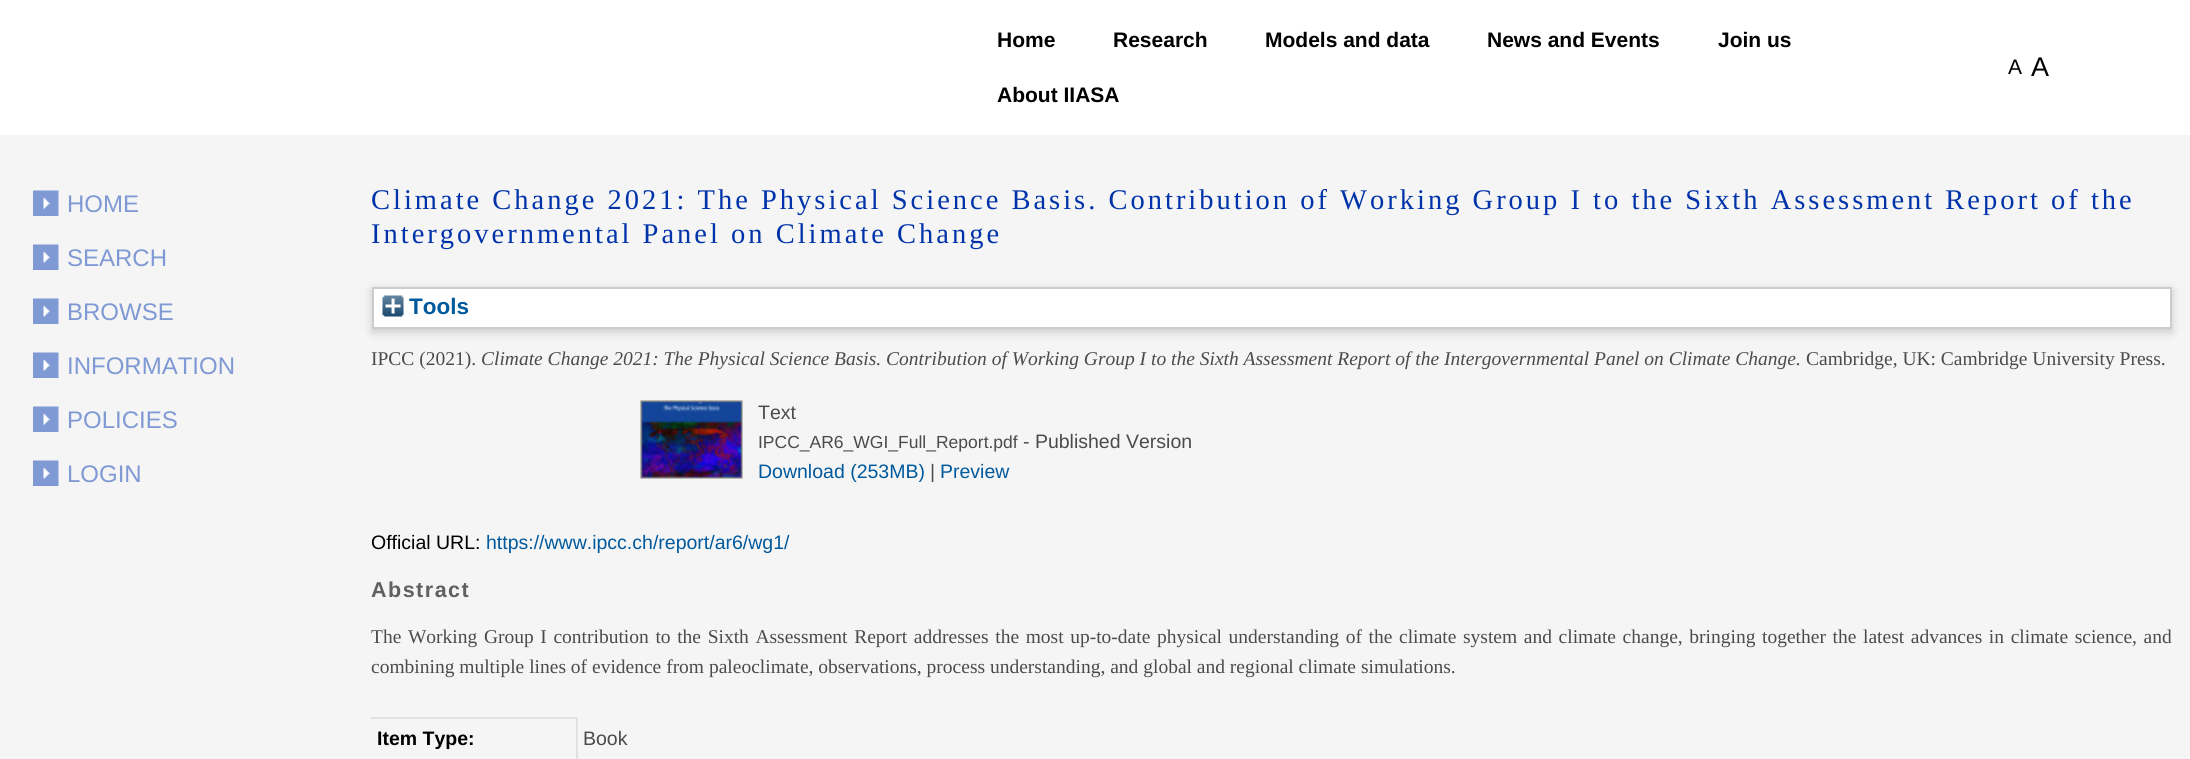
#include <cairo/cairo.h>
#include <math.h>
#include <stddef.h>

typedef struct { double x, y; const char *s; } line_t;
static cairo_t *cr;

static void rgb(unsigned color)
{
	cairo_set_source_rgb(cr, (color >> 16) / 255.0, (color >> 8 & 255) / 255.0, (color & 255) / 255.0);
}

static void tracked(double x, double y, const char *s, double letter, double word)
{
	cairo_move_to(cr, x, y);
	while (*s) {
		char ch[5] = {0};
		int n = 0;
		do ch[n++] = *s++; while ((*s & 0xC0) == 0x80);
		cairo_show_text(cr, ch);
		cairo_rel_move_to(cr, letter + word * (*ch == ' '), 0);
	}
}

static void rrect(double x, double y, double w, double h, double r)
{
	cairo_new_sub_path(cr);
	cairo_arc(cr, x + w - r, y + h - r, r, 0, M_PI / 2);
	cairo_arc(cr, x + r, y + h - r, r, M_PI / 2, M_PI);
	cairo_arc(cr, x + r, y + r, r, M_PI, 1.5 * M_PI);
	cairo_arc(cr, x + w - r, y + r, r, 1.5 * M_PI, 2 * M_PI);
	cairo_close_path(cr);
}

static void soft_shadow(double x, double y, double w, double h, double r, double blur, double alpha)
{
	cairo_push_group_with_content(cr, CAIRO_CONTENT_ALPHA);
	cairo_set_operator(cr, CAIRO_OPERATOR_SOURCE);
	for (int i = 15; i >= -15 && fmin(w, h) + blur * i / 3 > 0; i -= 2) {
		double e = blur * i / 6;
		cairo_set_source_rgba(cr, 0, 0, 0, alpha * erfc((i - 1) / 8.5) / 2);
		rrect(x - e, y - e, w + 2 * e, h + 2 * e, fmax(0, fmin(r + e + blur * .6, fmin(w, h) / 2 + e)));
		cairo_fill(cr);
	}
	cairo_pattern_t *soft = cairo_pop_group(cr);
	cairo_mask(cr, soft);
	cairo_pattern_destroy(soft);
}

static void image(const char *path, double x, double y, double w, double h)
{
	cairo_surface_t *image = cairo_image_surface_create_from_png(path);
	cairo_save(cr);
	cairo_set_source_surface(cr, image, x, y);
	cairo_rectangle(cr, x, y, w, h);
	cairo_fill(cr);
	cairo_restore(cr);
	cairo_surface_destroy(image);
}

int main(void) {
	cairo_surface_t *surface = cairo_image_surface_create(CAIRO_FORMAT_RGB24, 2190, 759);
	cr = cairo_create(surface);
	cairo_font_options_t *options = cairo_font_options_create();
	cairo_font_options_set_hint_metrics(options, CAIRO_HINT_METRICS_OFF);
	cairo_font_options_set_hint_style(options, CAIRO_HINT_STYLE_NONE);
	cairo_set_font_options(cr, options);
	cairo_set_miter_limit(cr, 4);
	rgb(0xf5f5f5);
	cairo_paint(cr);
	rgb(0xffffff);
	cairo_rectangle(cr, 0, 0, 2190, 135);
	cairo_fill(cr);
	image("img/1.png", 33, 190, 26, 26);
	image("img/1.png", 33, 244, 26, 26);
	image("img/1.png", 33, 298, 26, 26);
	image("img/1.png", 33, 352, 26, 26);
	image("img/1.png", 33, 406, 26, 26);
	image("img/1.png", 33, 460, 26, 26);
	rgb(0x646464);
	soft_shadow(372, 290, 1800, 42, 0, 4.5, 0.3);
	rgb(0xffffff);
	cairo_rectangle(cr, 373, 288, 1798, 40);
	cairo_fill_preserve(cr);
	rgb(0xcccccc);
	cairo_stroke(cr);
	image("img/2.png", 382, 295, 22, 22);
	image("img/3.png", 640, 400, 103, 79);
	rgb(0xe0e1e1);
	cairo_rectangle(cr, 371, 717, 207, 2);
	cairo_fill(cr);
	cairo_rectangle(cr, 576, 717, 2, 42);
	cairo_fill(cr);
	cairo_select_font_face(cr, "Liberation Sans", CAIRO_FONT_SLANT_NORMAL, CAIRO_FONT_WEIGHT_BOLD);
	cairo_set_font_size(cr, 21);
	rgb(0x000000);
	{
		static const line_t items[] = {
			{997, 47, "Home"},
			{1113, 47, "Research"},
			{1265, 47, "Models and data"},
			{1487, 47, "News and Events"},
			{1718, 47, "Join us"},
			{997, 102, "About IIASA"},
		};
		for (size_t i = 0; i < sizeof items / sizeof *items; i++) {
			cairo_move_to(cr, items[i].x, items[i].y);
			cairo_show_text(cr, items[i].s);
		}
	}
	cairo_select_font_face(cr, "Liberation Sans", CAIRO_FONT_SLANT_NORMAL, CAIRO_FONT_WEIGHT_NORMAL);
	cairo_move_to(cr, 2008, 74);
	cairo_show_text(cr, "A");
	cairo_set_font_size(cr, 27);
	cairo_move_to(cr, 2031, 76);
	cairo_show_text(cr, "A");
	cairo_set_font_size(cr, 24);
	rgb(0x7f99d4);
	{
		static const line_t items[] = {
			{67, 212, "HOME"},
			{67, 266, "SEARCH"},
			{67, 320, "BROWSE"},
			{67, 374, "INFORMATION"},
			{67, 428, "POLICIES"},
			{67, 482, "LOGIN"},
		};
		for (size_t i = 0; i < sizeof items / sizeof *items; i++) {
			cairo_move_to(cr, items[i].x, items[i].y);
			cairo_show_text(cr, items[i].s);
		}
	}
	cairo_select_font_face(cr, "Liberation Serif", CAIRO_FONT_SLANT_NORMAL, CAIRO_FONT_WEIGHT_NORMAL);
	cairo_set_font_size(cr, 28.5);
	rgb(0x0033aa);
	tracked(371, 209, "Climate Change 2021: The Physical Science Basis. Contribution of Working Group I to the Sixth Assessment Report of the", 3, 0);
	tracked(371, 243, "Intergovernmental Panel on Climate Change", 3, 0);
	cairo_select_font_face(cr, "Liberation Sans", CAIRO_FONT_SLANT_NORMAL, CAIRO_FONT_WEIGHT_BOLD);
	cairo_set_font_size(cr, 22.5);
	rgb(0x00599d);
	cairo_move_to(cr, 409, 314);
	cairo_show_text(cr, "Tools");
	cairo_select_font_face(cr, "Liberation Serif", CAIRO_FONT_SLANT_NORMAL, CAIRO_FONT_WEIGHT_NORMAL);
	cairo_set_font_size(cr, 19.5);
	rgb(0x4b4a4d);
	cairo_move_to(cr, 371, 365);
	cairo_show_text(cr, "IPCC (2021).");
	cairo_select_font_face(cr, "Liberation Serif", CAIRO_FONT_SLANT_ITALIC, CAIRO_FONT_WEIGHT_NORMAL);
	cairo_move_to(cr, 481, 365);
	cairo_show_text(cr, "Climate Change 2021: The Physical Science Basis. Contribution of Working Group I to the Sixth Assessment Report of the Intergovernmental Panel on Climate Change.");
	cairo_select_font_face(cr, "Liberation Serif", CAIRO_FONT_SLANT_NORMAL, CAIRO_FONT_WEIGHT_NORMAL);
	cairo_move_to(cr, 1806, 365);
	cairo_show_text(cr, "Cambridge, UK: Cambridge University Press.");
	cairo_select_font_face(cr, "Liberation Sans", CAIRO_FONT_SLANT_NORMAL, CAIRO_FONT_WEIGHT_NORMAL);
	cairo_move_to(cr, 758, 419);
	cairo_show_text(cr, "Text");
	cairo_set_font_size(cr, 17.5);
	cairo_move_to(cr, 758, 448);
	cairo_show_text(cr, "IPCC_AR6_WGI_Full_Report.pdf");
	cairo_set_font_size(cr, 19.5);
	cairo_move_to(cr, 1023, 448);
	cairo_show_text(cr, "- Published Version");
	rgb(0x00599d);
	cairo_move_to(cr, 758, 478);
	cairo_show_text(cr, "Download (253MB)");
	rgb(0x4b4a4d);
	cairo_move_to(cr, 930, 478);
	cairo_show_text(cr, "|");
	rgb(0x00599d);
	cairo_move_to(cr, 940, 478);
	cairo_show_text(cr, "Preview");
	rgb(0x000000);
	cairo_move_to(cr, 371, 549);
	cairo_show_text(cr, "Official URL:");
	rgb(0x00599d);
	cairo_move_to(cr, 486, 549);
	cairo_show_text(cr, "https://www.ipcc.ch/report/ar6/wg1/");
	cairo_select_font_face(cr, "Liberation Sans", CAIRO_FONT_SLANT_NORMAL, CAIRO_FONT_WEIGHT_BOLD);
	cairo_set_font_size(cr, 21.5);
	rgb(0x606060);
	tracked(371, 597, "Abstract", 1.5, 0);
	cairo_select_font_face(cr, "Liberation Serif", CAIRO_FONT_SLANT_NORMAL, CAIRO_FONT_WEIGHT_NORMAL);
	cairo_set_font_size(cr, 19.5);
	rgb(0x4b4a4d);
	tracked(371, 643, "The Working Group I contribution to the Sixth Assessment Report addresses the most up-to-date physical understanding of the climate system and climate change, bringing together the latest advances in climate science, and", 0, 1.75);
	cairo_move_to(cr, 371, 673);
	cairo_show_text(cr, "combining multiple lines of evidence from paleoclimate, observations, process understanding, and global and regional climate simulations.");
	cairo_select_font_face(cr, "Liberation Sans", CAIRO_FONT_SLANT_NORMAL, CAIRO_FONT_WEIGHT_BOLD);
	rgb(0x000000);
	cairo_move_to(cr, 377, 745);
	cairo_show_text(cr, "Item Type:");
	cairo_select_font_face(cr, "Liberation Sans", CAIRO_FONT_SLANT_NORMAL, CAIRO_FONT_WEIGHT_NORMAL);
	rgb(0x4b4a4d);
	cairo_move_to(cr, 583, 745);
	cairo_show_text(cr, "Book");
	cairo_surface_write_to_png(surface, "page.png");
	cairo_font_options_destroy(options);
	cairo_destroy(cr);
	cairo_surface_destroy(surface);
	return 0;
}
